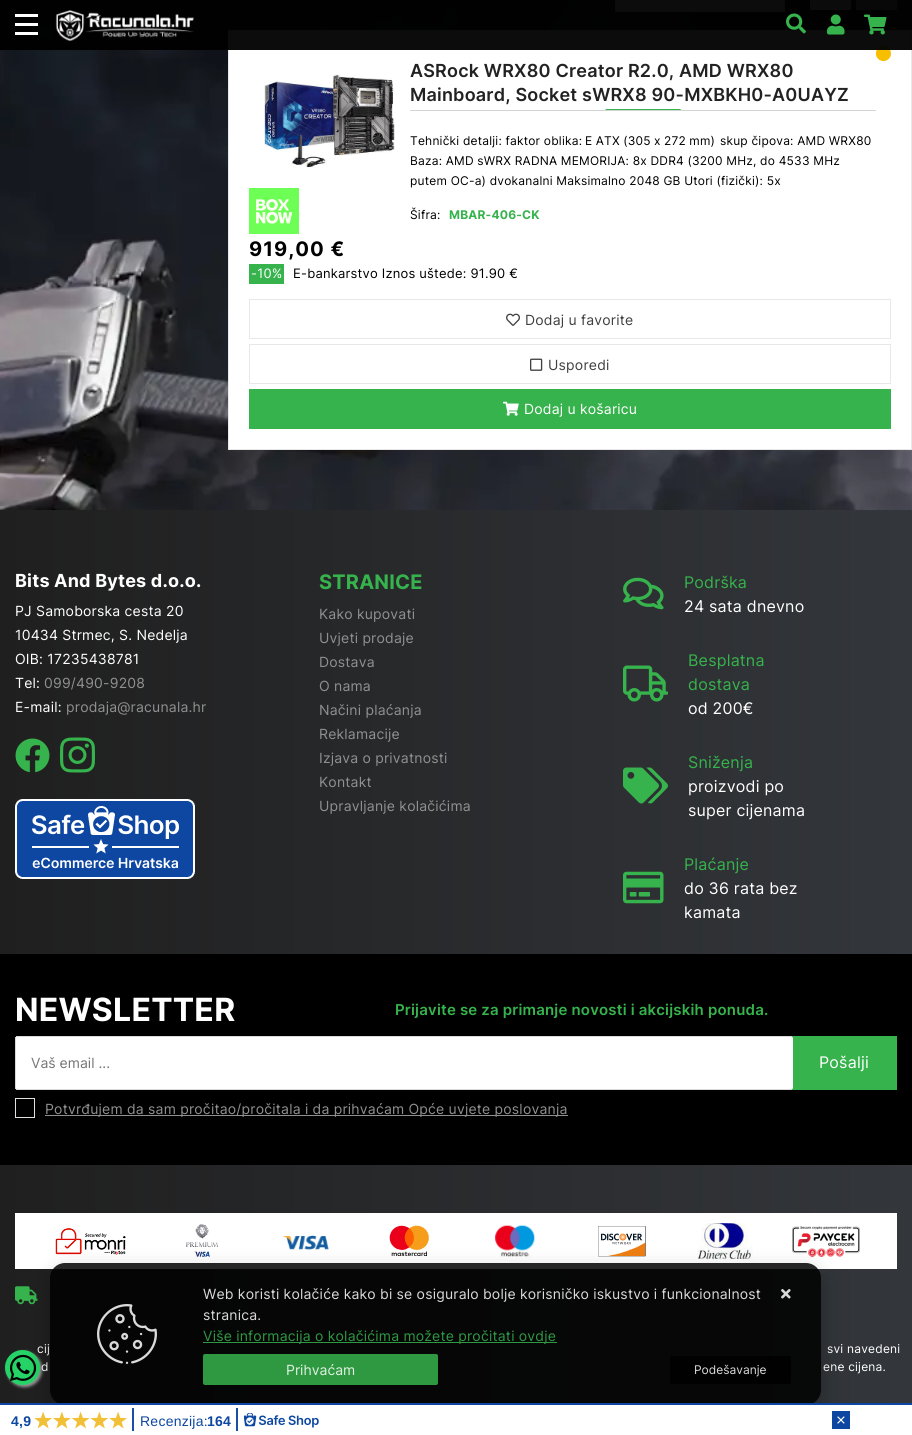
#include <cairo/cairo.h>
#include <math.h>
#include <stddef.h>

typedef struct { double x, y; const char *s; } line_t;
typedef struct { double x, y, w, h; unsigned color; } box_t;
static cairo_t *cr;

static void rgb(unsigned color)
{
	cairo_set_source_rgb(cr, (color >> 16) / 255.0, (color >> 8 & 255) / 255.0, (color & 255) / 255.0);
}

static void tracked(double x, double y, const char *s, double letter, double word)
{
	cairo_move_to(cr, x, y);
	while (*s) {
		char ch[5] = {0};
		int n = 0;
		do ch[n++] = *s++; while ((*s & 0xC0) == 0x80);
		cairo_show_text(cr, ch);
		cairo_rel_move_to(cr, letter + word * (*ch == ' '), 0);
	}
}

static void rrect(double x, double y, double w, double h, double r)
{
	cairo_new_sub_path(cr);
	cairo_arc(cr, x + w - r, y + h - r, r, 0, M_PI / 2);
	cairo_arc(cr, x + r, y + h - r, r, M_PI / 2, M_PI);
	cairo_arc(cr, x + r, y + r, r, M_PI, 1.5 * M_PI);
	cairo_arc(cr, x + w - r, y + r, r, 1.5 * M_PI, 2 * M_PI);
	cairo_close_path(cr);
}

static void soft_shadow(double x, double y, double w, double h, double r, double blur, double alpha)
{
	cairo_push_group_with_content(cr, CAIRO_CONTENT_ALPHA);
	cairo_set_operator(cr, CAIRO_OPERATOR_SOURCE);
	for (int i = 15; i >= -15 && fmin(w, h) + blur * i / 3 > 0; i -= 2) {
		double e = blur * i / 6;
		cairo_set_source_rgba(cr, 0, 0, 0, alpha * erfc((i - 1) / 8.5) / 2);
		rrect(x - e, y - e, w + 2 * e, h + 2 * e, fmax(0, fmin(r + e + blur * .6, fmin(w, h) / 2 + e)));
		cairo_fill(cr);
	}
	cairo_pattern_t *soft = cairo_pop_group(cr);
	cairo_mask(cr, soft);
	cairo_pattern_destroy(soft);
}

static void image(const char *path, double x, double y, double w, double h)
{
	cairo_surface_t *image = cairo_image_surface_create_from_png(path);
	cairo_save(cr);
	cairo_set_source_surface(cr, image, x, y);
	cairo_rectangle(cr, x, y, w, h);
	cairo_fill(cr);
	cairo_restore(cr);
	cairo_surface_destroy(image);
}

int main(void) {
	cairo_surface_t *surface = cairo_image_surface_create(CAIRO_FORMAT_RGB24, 912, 1435);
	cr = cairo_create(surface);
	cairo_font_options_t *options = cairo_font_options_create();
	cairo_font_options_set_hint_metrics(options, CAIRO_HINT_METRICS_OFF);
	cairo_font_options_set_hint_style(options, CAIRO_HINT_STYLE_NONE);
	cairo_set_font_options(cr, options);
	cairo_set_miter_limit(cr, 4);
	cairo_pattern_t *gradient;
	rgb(0xffffff);
	cairo_paint(cr);
	image("img/5.png", 0, 0, 912, 510);
	rgb(0xffffff);
	cairo_rectangle(cr, 615.5, -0.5, 169, 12);
	cairo_fill_preserve(cr);
	rgb(0xe0e2db);
	cairo_set_line_width(cr, 1);
	cairo_stroke(cr);
	rgb(0xe3e3e3);
	cairo_rectangle(cr, 810, 0, 41, 10);
	cairo_fill(cr);
	rgb(0xa6a8ab);
	cairo_rectangle(cr, 856, 0, 41, 10);
	cairo_fill(cr);
	rgb(0xffffff);
	cairo_rectangle(cr, 228.5, 30.5, 683, 419);
	cairo_fill_preserve(cr);
	rgb(0xe8e8e8);
	cairo_stroke(cr);
	rgb(0xf8be00);
	cairo_arc(cr, 883.5, 53.5, 7.5, 0, 2 * M_PI);
	cairo_fill(cr);
	cairo_new_path(cr);
	cairo_move_to(cr, 878, 49);
	cairo_curve_to(cr, 884.5, 42.5, 894, 52, 888, 58.5);
	cairo_curve_to(cr, 881.5, 65, 872, 55.5, 878, 49);
	cairo_close_path(cr);
	cairo_fill(cr);
	cairo_set_source_rgba(cr, 0, 0, 0, 0.95);
	cairo_rectangle(cr, 0, 0, 912, 50);
	cairo_fill(cr);
	rgb(0xffffff);
	cairo_rectangle(cr, 15, 23, 23, 3);
	cairo_fill(cr);
	cairo_rectangle(cr, 15, 14, 23, 3);
	cairo_fill(cr);
	cairo_rectangle(cr, 15, 32, 23, 3);
	cairo_fill(cr);
	image("img/1.png", 55, 10, 139, 31);
	image("img/2.png", 786, 13, 20, 21);
	image("img/3.png", 827, 14, 18, 21);
	image("img/4.png", 864, 14, 23, 21);
	image("img/6.png", 264, 74, 131, 94);
	image("img/7.png", 249, 188, 50, 46);
	rgb(0xd4d4d4);
	cairo_rectangle(cr, 410, 110, 466, 1);
	cairo_fill(cr);
	cairo_save(cr);
	cairo_rectangle(cr, 410, 51, 466, 59);
	cairo_clip(cr);
	rgb(0x36b34c);
	cairo_new_path(cr);
	cairo_move_to(cr, 606, 109);
	cairo_line_to(cr, 681, 109);
	cairo_line_to(cr, 679, 112);
	cairo_line_to(cr, 604, 112);
	cairo_close_path(cr);
	cairo_fill(cr);
	cairo_restore(cr);
	rgb(0x36b34c);
	cairo_rectangle(cr, 249, 264, 35, 20);
	cairo_fill(cr);
	cairo_rectangle(cr, 249.5, 299.5, 641, 39);
	rgb(0xe8e8e8);
	cairo_stroke(cr);
	image("img/8.png", 506, 313, 14, 13);
	cairo_rectangle(cr, 249.5, 344.5, 641, 39);
	cairo_stroke(cr);
	image("img/9.png", 530, 358, 13, 13);
	rgb(0x36b34c);
	cairo_rectangle(cr, 249, 389, 642, 40);
	cairo_fill(cr);
	image("img/10.png", 503, 401, 16, 15);
	gradient = cairo_pattern_create_linear(0, 958, 912, 958);
	cairo_pattern_add_color_stop_rgba(gradient, 0, 0.122, 0.122, 0.122, 1);
	cairo_pattern_add_color_stop_rgba(gradient, 1, 0.2, 0.212, 0.231, 1);
	cairo_set_source(cr, gradient);
	cairo_pattern_destroy(gradient);
	cairo_rectangle(cr, 0, 510, 912, 893);
	cairo_fill(cr);
	image("img/11.png", 15, 738, 35, 35);
	image("img/12.png", 60, 737, 35, 36);
	image("img/13.png", 15, 799, 180, 80);
	image("img/14.png", 623, 577, 41, 33);
	image("img/15.png", 623, 665, 45, 37);
	image("img/16.png", 623, 767, 45, 37);
	image("img/17.png", 623, 871, 41, 33);
	rgb(0x000000);
	cairo_rectangle(cr, 0, 954, 912, 211);
	cairo_fill(cr);
	rgb(0x36b34c);
	cairo_rectangle(cr, 792, 1037, 104, 52);
	cairo_fill(cr);
	rgb(0xffffff);
	cairo_new_path(cr);
	cairo_move_to(cr, 17, 1037);
	cairo_line_to(cr, 791, 1037);
	cairo_curve_to(cr, 792, 1037, 793, 1037, 793, 1038);
	cairo_line_to(cr, 793, 1088);
	cairo_curve_to(cr, 793, 1089, 792, 1089, 791, 1089);
	cairo_line_to(cr, 17, 1089);
	cairo_curve_to(cr, 16, 1089, 16, 1089, 16, 1088);
	cairo_line_to(cr, 16, 1038);
	cairo_curve_to(cr, 16, 1037, 16, 1037, 17, 1037);
	cairo_close_path(cr);
	cairo_fill(cr);
	{
		static const box_t items[] = {
			{16, 1036, 776, 1, 0xd9d9d9},
			{16, 1089, 776, 1, 0xd9d9d9},
			{15, 1037, 1, 52, 0xd9d9d9},
			{792, 1036, 105, 1, 0x36b34c},
			{896, 1036, 1, 54, 0x36b34c},
			{792, 1089, 105, 1, 0x36b34c},
		};
		for (size_t i = 0; i < sizeof items / sizeof *items; i++) {
			rgb(items[i].color);
			cairo_rectangle(cr, items[i].x, items[i].y, items[i].w, items[i].h);
			cairo_fill(cr);
		}
	}
	cairo_rectangle(cr, 15.5, 1098.5, 19, 19);
	rgb(0xe0e2db);
	cairo_stroke(cr);
	rgb(0x909090);
	cairo_rectangle(cr, 45, 1115, 523, 1);
	cairo_fill(cr);
	rgb(0xffffff);
	cairo_rectangle(cr, 15, 1213, 882, 56);
	cairo_fill(cr);
	image("img/18.png", 55, 1228, 71, 27);
	image("img/19.png", 186, 1224, 32, 33);
	image("img/20.png", 282, 1235, 47, 15);
	image("img/21.png", 389, 1225, 40, 31);
	image("img/22.png", 495, 1225, 40, 32);
	image("img/23.png", 598, 1226, 48, 31);
	image("img/24.png", 697, 1223, 56, 36);
	image("img/25.png", 792, 1226, 68, 31);
	image("img/26.png", 15, 1286, 23, 19);
	rgb(0x999999);
	soft_shadow(7, 1352, 35, 35, 17.5, 1.5, 1);
	cairo_select_font_face(cr, "Inter SemiBold", CAIRO_FONT_SLANT_NORMAL, CAIRO_FONT_WEIGHT_NORMAL);
	cairo_set_font_size(cr, 18);
	rgb(0x222222);
	tracked(410, 77, "ASRock WRX80 Creator R2.0, AMD WRX80", 0.2, 0);
	tracked(410, 101, "Mainboard, Socket sWRX8 90-MXBKH0-A0UAYZ", 0.2, 0);
	cairo_select_font_face(cr, "Inter", CAIRO_FONT_SLANT_NORMAL, CAIRO_FONT_WEIGHT_NORMAL);
	cairo_set_font_size(cr, 12);
	rgb(0x000000);
	tracked(410, 145, "Tehnički detalji: faktor oblika:", 0.2, 0);
	tracked(585, 145, "E ATX (305 x 272 mm)", 0.2, -0.25);
	{
		static const line_t items[] = {
			{720, 145, "skup čipova: AMD WRX80"},
			{410, 165, "Baza: AMD sWRX RADNA MEMORIJA: 8x DDR4 (3200 MHz, do 4533 MHz"},
			{410, 185, "putem OC-a) dvokanalni Maksimalno 2048 GB Utori (fizički): 5x"},
			{410, 219, "Šifra:"},
		};
		for (size_t i = 0; i < sizeof items / sizeof *items; i++) {
			tracked(items[i].x, items[i].y, items[i].s, 0.2, 0);
		}
	}
	cairo_select_font_face(cr, "Inter", CAIRO_FONT_SLANT_NORMAL, CAIRO_FONT_WEIGHT_BOLD);
	rgb(0x36b34c);
	tracked(449, 219, "MBAR-406-CK", 0.2, 0);
	cairo_set_font_size(cr, 20);
	rgb(0x000000);
	tracked(249, 256, "919,00 €", 1, 0);
	cairo_select_font_face(cr, "Inter", CAIRO_FONT_SLANT_NORMAL, CAIRO_FONT_WEIGHT_NORMAL);
	cairo_set_font_size(cr, 13);
	rgb(0xffffff);
	tracked(251, 278, "-10%", 0.2, 0);
	rgb(0x000000);
	tracked(293, 278, "E-bankarstvo Iznos uštede: 91.90 €", 0.2, 0);
	cairo_set_font_size(cr, 14);
	rgb(0x403f41);
	tracked(525, 325, "Dodaj u favorite", 0.2, 0);
	tracked(548, 370, "Usporedi", 0.2, 0);
	rgb(0xffffff);
	tracked(524, 414, "Dodaj u košaricu", 0.2, 0);
	cairo_select_font_face(cr, "Inter", CAIRO_FONT_SLANT_NORMAL, CAIRO_FONT_WEIGHT_BOLD);
	cairo_set_font_size(cr, 18);
	tracked(15, 587, "Bits And Bytes d.o.o.", 0.2, 0);
	cairo_select_font_face(cr, "Inter", CAIRO_FONT_SLANT_NORMAL, CAIRO_FONT_WEIGHT_NORMAL);
	cairo_set_font_size(cr, 14);
	{
		static const line_t items[] = {
			{15, 616, "PJ Samoborska cesta 20"},
			{15, 640, "10434 Strmec, S. Nedelja"},
			{15, 664, "OIB: 17235438781"},
			{15, 688, "Tel:"},
		};
		for (size_t i = 0; i < sizeof items / sizeof *items; i++) {
			tracked(items[i].x, items[i].y, items[i].s, 0.2, 0);
		}
	}
	rgb(0x909090);
	tracked(44, 688, "099/490-9208", 0.2, 0);
	rgb(0xffffff);
	tracked(15, 712, "E-mail:", 0.2, 0);
	rgb(0x909090);
	tracked(66, 712, "prodaja@racunala.hr", 0.2, 0);
	cairo_select_font_face(cr, "Inter", CAIRO_FONT_SLANT_NORMAL, CAIRO_FONT_WEIGHT_BOLD);
	cairo_set_font_size(cr, 20);
	rgb(0x36b34c);
	tracked(319, 589, "STRANICE", 0.2, 0);
	cairo_select_font_face(cr, "Inter", CAIRO_FONT_SLANT_NORMAL, CAIRO_FONT_WEIGHT_NORMAL);
	cairo_set_font_size(cr, 14);
	rgb(0x909090);
	{
		static const line_t items[] = {
			{319, 619, "Kako kupovati"},
			{319, 643, "Uvjeti prodaje"},
			{319, 667, "Dostava"},
			{319, 691, "O nama"},
			{319, 715, "Načini plaćanja"},
			{319, 739, "Reklamacije"},
			{319, 763, "Izjava o privatnosti"},
			{319, 787, "Kontakt"},
			{319, 811, "Upravljanje kolačićima"},
		};
		for (size_t i = 0; i < sizeof items / sizeof *items; i++) {
			tracked(items[i].x, items[i].y, items[i].s, 0.2, 0);
		}
	}
	cairo_set_font_size(cr, 16);
	rgb(0x36b34c);
	tracked(684, 588, "Podrška", 0.2, 0);
	rgb(0xffffff);
	tracked(684, 612, "24 sata dnevno", 0.2, 0);
	rgb(0x36b34c);
	tracked(688, 666, "Besplatna", 0.2, 0);
	tracked(688, 690, "dostava", 0.2, 0);
	rgb(0xffffff);
	tracked(688, 714, "od 200€", 0.2, 0);
	rgb(0x36b34c);
	tracked(688, 768, "Sniženja", 0.2, 0);
	rgb(0xffffff);
	tracked(688, 792, "proizvodi po", 0.2, 0);
	tracked(688, 816, "super cijenama", 0.2, 0);
	rgb(0x36b34c);
	tracked(684, 870, "Plaćanje", 0.2, 0);
	rgb(0xffffff);
	tracked(684, 894, "do 36 rata bez", 0.2, 0);
	tracked(684, 918, "kamata", 0.2, 0);
	cairo_select_font_face(cr, "Inter", CAIRO_FONT_SLANT_NORMAL, CAIRO_FONT_WEIGHT_BOLD);
	cairo_set_font_size(cr, 32);
	tracked(15, 1021, "NEWSLETTER", 0.2, 0);
	cairo_select_font_face(cr, "Inter SemiBold", CAIRO_FONT_SLANT_NORMAL, CAIRO_FONT_WEIGHT_NORMAL);
	cairo_set_font_size(cr, 15);
	rgb(0x36b34c);
	tracked(395, 1015, "Prijavite se za primanje novosti i akcijskih ponuda.", 0.2, 0);
	cairo_select_font_face(cr, "Inter", CAIRO_FONT_SLANT_NORMAL, CAIRO_FONT_WEIGHT_NORMAL);
	cairo_set_font_size(cr, 14);
	rgb(0x757575);
	cairo_move_to(cr, 31, 1068);
	cairo_show_text(cr, "Vaš email ...");
	cairo_set_font_size(cr, 16);
	rgb(0xffffff);
	tracked(819, 1068, "Pošalji", 0.2, 0);
	cairo_set_font_size(cr, 14);
	rgb(0x909090);
	tracked(45, 1114, "Potvrđujem da sam pročitao/pročitala i da prihvaćam Opće uvjete poslovanja", 0.2, 0);
	cairo_set_font_size(cr, 12);
	rgb(0xffffff);
	{
		static const line_t items[] = {
			{37, 1353, "cij"},
			{827, 1353, "svi navedeni"},
			{41, 1371, "d"},
			{823, 1371, "ene cijena."},
		};
		for (size_t i = 0; i < sizeof items / sizeof *items; i++) {
			tracked(items[i].x, items[i].y, items[i].s, 0.2, 0);
		}
	}
	rgb(0x25d366);
	cairo_new_path(cr);
	cairo_arc(cr, 22.5, 1367.5, 17.5, 0, 2 * M_PI);
	cairo_fill(cr);
	image("img/29.png", 10, 1354, 27, 27);
	cairo_save(cr);
	cairo_set_fill_rule(cr, CAIRO_FILL_RULE_EVEN_ODD);
	cairo_new_path(cr);
	cairo_move_to(cr, 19, 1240);
	cairo_line_to(cr, 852, 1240);
	cairo_line_to(cr, 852, 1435);
	cairo_line_to(cr, 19, 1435);
	cairo_close_path(cr);
	cairo_move_to(cr, 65, 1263);
	cairo_line_to(cr, 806, 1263);
	cairo_curve_to(cr, 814.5, 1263, 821, 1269.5, 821, 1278);
	cairo_line_to(cr, 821, 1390);
	cairo_curve_to(cr, 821, 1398.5, 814.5, 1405, 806, 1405);
	cairo_line_to(cr, 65, 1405);
	cairo_curve_to(cr, 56.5, 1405, 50, 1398.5, 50, 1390);
	cairo_line_to(cr, 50, 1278);
	cairo_curve_to(cr, 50, 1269.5, 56.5, 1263, 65, 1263);
	cairo_close_path(cr);
	cairo_clip(cr);
	rgb(0x000000);
	soft_shadow(50, 1271, 771, 142, 15, 10, 0.26);
	cairo_restore(cr);
	cairo_set_source_rgba(cr, 0, 0, 0, 0.85);
	rrect(50, 1263, 771, 142, 15);
	cairo_fill(cr);
	rrect(670, 1356, 121, 28, 2);
	cairo_fill(cr);
	rgb(0xdadada);
	cairo_move_to(cr, 694, 1374);
	cairo_show_text(cr, "Podešavanje");
	cairo_set_source_rgba(cr, 0.212, 0.702, 0.298, 0.85);
	rrect(203, 1354, 235, 31, 2);
	cairo_fill(cr);
	cairo_set_font_size(cr, 14);
	rgb(0xe0f0e3);
	cairo_move_to(cr, 286, 1375);
	cairo_show_text(cr, "Prihvaćam");
	rgb(0x2f9942);
	cairo_rectangle(cr, 203, 1342, 354, 1);
	cairo_fill(cr);
	tracked(203, 1341, "Više informacija o kolačićima možete pročitati ovdje", 0.2, 0);
	rgb(0xdadada);
	tracked(203, 1320, "stranica.", 0.2, 0);
	tracked(203, 1299, "Web koristi kolačiće kako bi se osiguralo bolje korisničko iskustvo i funkcionalnost", 0.2, 0);
	image("img/28.png", 781, 1289, 10, 10);
	image("img/27.png", 97, 1304, 60, 60);
	rgb(0x0d47a1);
	cairo_rectangle(cr, 0, 1403, 912, 2);
	cairo_fill(cr);
	image("img/30.png", 0, 1405, 912, 30);
	cairo_select_font_face(cr, "Liberation Sans", CAIRO_FONT_SLANT_NORMAL, CAIRO_FONT_WEIGHT_BOLD);
	tracked(11, 1426, "4,9", 0.25, 0);
	cairo_select_font_face(cr, "Liberation Sans", CAIRO_FONT_SLANT_NORMAL, CAIRO_FONT_WEIGHT_NORMAL);
	tracked(140, 1426, "Recenzija:", 0.25, 0);
	cairo_select_font_face(cr, "Liberation Sans", CAIRO_FONT_SLANT_NORMAL, CAIRO_FONT_WEIGHT_BOLD);
	tracked(207, 1426, "164", 0.25, 0);
	cairo_surface_write_to_png(surface, "page.png");
	cairo_font_options_destroy(options);
	cairo_destroy(cr);
	cairo_surface_destroy(surface);
	return 0;
}
